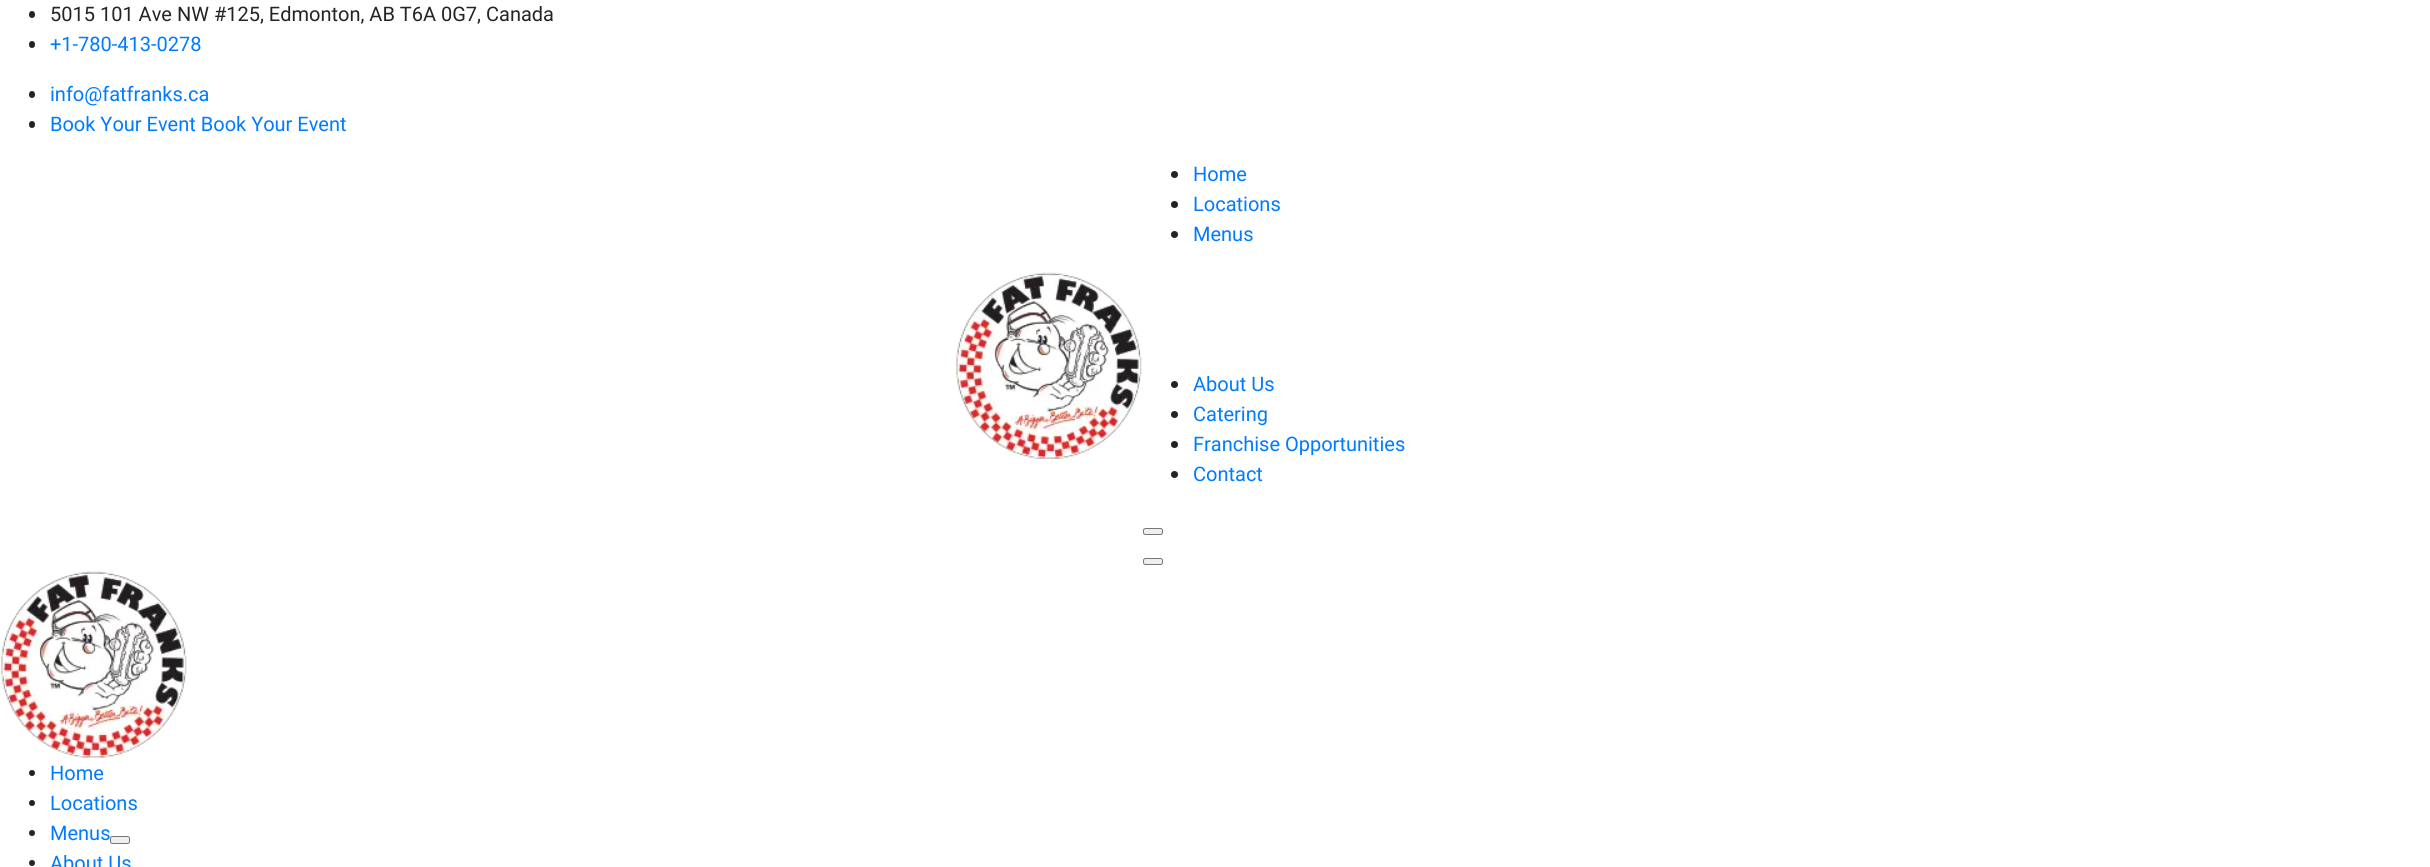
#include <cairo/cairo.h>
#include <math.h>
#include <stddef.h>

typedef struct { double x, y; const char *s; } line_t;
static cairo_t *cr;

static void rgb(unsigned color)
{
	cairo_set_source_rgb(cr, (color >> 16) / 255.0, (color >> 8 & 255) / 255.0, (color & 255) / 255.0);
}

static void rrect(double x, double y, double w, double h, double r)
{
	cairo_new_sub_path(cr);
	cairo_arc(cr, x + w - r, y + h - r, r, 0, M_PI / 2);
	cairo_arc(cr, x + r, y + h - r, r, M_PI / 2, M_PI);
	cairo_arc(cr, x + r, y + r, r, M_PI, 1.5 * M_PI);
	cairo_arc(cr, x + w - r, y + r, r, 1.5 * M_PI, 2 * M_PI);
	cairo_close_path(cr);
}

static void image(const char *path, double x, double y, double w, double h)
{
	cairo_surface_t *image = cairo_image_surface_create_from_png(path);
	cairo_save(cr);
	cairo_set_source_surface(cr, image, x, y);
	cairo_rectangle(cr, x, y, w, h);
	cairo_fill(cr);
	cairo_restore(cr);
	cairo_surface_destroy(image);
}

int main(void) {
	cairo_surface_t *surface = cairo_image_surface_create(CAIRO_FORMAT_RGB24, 2430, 867);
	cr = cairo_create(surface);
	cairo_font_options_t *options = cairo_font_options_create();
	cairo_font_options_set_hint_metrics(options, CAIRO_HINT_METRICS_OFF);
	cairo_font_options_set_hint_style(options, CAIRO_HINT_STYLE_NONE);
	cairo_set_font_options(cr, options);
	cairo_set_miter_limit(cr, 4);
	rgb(0xffffff);
	cairo_paint(cr);
	rgb(0x212529);
	rrect(29, 11, 6, 7, 3);
	cairo_fill(cr);
	rrect(29, 41, 6, 7, 3);
	cairo_fill(cr);
	rrect(29, 91, 6, 7, 3);
	cairo_fill(cr);
	rrect(29, 121, 6, 7, 3);
	cairo_fill(cr);
	image("img/1.png", 956, 272, 186, 187);
	cairo_arc(cr, 1174.5, 174.5, 3.5, 0, 2 * M_PI);
	cairo_fill(cr);
	cairo_arc(cr, 1174.5, 204.5, 3.5, 0, 2 * M_PI);
	cairo_fill(cr);
	cairo_arc(cr, 1174.5, 234.5, 3.5, 0, 2 * M_PI);
	cairo_fill(cr);
	cairo_arc(cr, 1174.5, 384.5, 3.5, 0, 2 * M_PI);
	cairo_fill(cr);
	cairo_arc(cr, 1174.5, 414.5, 3.5, 0, 2 * M_PI);
	cairo_fill(cr);
	cairo_arc(cr, 1174.5, 444.5, 3.5, 0, 2 * M_PI);
	cairo_fill(cr);
	cairo_arc(cr, 1174.5, 474.5, 3.5, 0, 2 * M_PI);
	cairo_fill(cr);
	rgb(0xefefef);
	rrect(1143.5, 528.5, 19, 6, 2);
	cairo_fill_preserve(cr);
	rgb(0x767676);
	cairo_set_line_width(cr, 1);
	cairo_stroke(cr);
	rgb(0xefefef);
	rrect(1143.5, 558.5, 19, 6, 2);
	cairo_fill_preserve(cr);
	rgb(0x767676);
	cairo_stroke(cr);
	image("img/2.png", 1, 571, 186, 187);
	rgb(0x212529);
	cairo_arc(cr, 32, 773, 3, 0, 2 * M_PI);
	cairo_fill(cr);
	cairo_arc(cr, 32, 803, 3, 0, 2 * M_PI);
	cairo_fill(cr);
	cairo_arc(cr, 32, 833, 3, 0, 2 * M_PI);
	cairo_fill(cr);
	rgb(0xefefef);
	rrect(110.5, 836.5, 19, 7, 2);
	cairo_fill_preserve(cr);
	rgb(0x767676);
	cairo_stroke(cr);
	rgb(0x212529);
	cairo_arc(cr, 32, 863, 3, 0, 2 * M_PI);
	cairo_fill(cr);
	cairo_select_font_face(cr, "Roboto", CAIRO_FONT_SLANT_NORMAL, CAIRO_FONT_WEIGHT_NORMAL);
	cairo_set_font_size(cr, 20);
	cairo_move_to(cr, 50, 21);
	cairo_show_text(cr, "5015 101 Ave NW #125, Edmonton, AB T6A 0G7, Canada");
	rgb(0x007bff);
	{
		static const line_t items[] = {
			{50, 51, "+1-780-413-0278"},
			{50, 101, "info@fatfranks.ca"},
			{50, 131, "Book Your Event Book Your Event"},
			{1193, 181, "Home"},
			{1193, 211, "Locations"},
			{1193, 241, "Menus"},
			{1193, 391, "About Us"},
			{1193, 421, "Catering"},
			{1193, 451, "Franchise Opportunities"},
			{1193, 481, "Contact"},
			{50, 780, "Home"},
			{50, 810, "Locations"},
			{50, 840, "Menus"},
			{50, 870, "About Us"},
		};
		for (size_t i = 0; i < sizeof items / sizeof *items; i++) {
			cairo_move_to(cr, items[i].x, items[i].y);
			cairo_show_text(cr, items[i].s);
		}
	}
	cairo_surface_write_to_png(surface, "page.png");
	cairo_font_options_destroy(options);
	cairo_destroy(cr);
	cairo_surface_destroy(surface);
	return 0;
}
